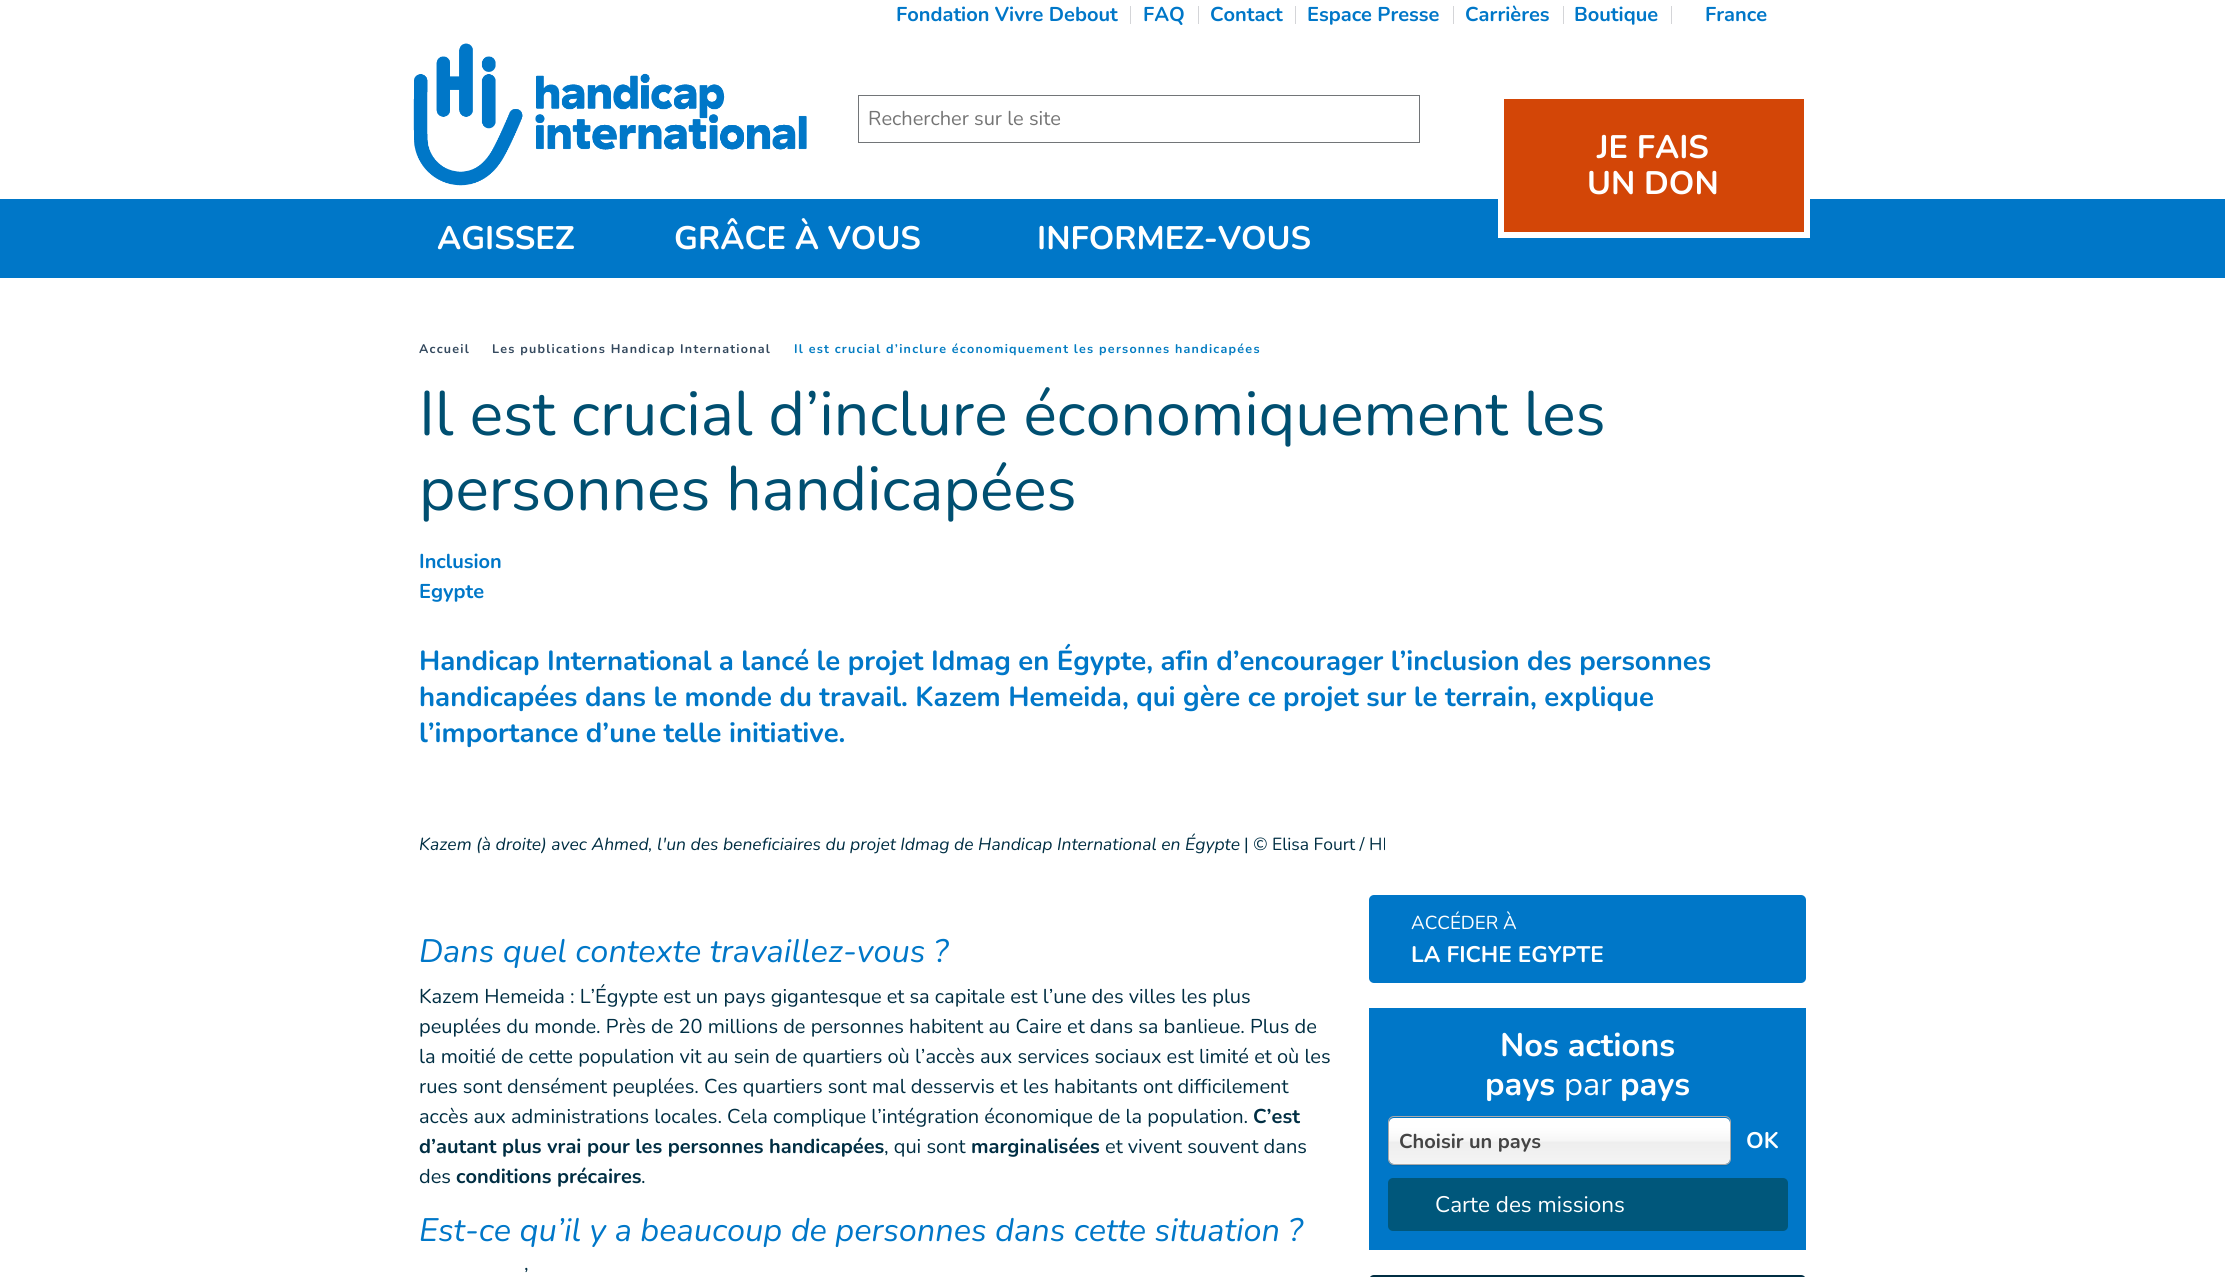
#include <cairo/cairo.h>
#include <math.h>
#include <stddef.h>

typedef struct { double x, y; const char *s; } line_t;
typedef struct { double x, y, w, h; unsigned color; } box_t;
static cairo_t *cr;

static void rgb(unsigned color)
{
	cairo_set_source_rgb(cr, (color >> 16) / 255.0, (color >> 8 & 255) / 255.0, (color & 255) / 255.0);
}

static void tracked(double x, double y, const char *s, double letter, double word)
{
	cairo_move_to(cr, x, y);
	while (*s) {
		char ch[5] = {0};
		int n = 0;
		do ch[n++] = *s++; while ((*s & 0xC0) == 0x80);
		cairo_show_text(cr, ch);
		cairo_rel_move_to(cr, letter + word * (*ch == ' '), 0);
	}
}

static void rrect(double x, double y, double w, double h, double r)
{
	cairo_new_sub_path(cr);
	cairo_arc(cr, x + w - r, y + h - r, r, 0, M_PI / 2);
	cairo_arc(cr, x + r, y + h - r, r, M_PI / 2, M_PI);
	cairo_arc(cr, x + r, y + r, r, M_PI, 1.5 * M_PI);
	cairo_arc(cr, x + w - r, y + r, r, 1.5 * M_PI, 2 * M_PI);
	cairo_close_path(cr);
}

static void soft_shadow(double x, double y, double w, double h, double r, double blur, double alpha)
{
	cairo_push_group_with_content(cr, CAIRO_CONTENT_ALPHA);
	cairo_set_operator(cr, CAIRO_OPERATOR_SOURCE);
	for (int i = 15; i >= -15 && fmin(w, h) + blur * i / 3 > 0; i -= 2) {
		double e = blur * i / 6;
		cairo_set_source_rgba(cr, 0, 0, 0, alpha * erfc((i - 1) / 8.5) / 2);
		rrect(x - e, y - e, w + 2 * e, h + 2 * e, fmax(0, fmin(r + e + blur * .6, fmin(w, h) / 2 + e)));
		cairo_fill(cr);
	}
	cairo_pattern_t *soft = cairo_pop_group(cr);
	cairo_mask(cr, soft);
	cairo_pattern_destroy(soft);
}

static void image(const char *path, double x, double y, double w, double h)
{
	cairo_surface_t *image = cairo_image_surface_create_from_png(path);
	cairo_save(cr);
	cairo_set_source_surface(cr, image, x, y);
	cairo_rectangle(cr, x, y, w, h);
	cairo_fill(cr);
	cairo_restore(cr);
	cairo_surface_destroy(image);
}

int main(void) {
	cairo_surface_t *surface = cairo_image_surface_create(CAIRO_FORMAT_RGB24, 2225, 1277);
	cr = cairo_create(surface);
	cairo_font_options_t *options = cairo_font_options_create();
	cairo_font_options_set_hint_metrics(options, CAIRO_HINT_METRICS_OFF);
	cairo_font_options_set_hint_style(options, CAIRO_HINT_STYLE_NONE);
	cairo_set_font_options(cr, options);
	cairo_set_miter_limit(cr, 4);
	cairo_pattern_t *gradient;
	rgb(0xffffff);
	cairo_paint(cr);
	{
		static const box_t items[] = {
			{1130, 6, 1, 18, 0xd4d5d8},
			{1198, 6, 1, 18, 0xd4d5d8},
			{1295, 6, 1, 18, 0xd4d5d8},
			{1453, 6, 1, 18, 0xd4d5d8},
			{1563, 6, 1, 18, 0xd4d5d8},
			{1671, 6, 1, 18, 0xd4d5d8},
		};
		for (size_t i = 0; i < sizeof items / sizeof *items; i++) {
			rgb(items[i].color);
			cairo_rectangle(cr, items[i].x, items[i].y, items[i].w, items[i].h);
			cairo_fill(cr);
		}
	}
	image("img/1.png", 413, 43, 394, 143);
	cairo_rectangle(cr, 858.5, 95.5, 561, 47);
	rgb(0x727578);
	cairo_set_line_width(cr, 1);
	cairo_stroke(cr);
	rgb(0x0077c8);
	cairo_rectangle(cr, 0, 199, 2225, 79);
	cairo_fill(cr);
	rgb(0xd34607);
	cairo_rectangle(cr, 1501, 96, 306, 139);
	cairo_fill_preserve(cr);
	rgb(0xffffff);
	cairo_set_line_width(cr, 6);
	cairo_stroke(cr);
	rgb(0x0077c8);
	rrect(1369, 895, 437, 88, 5);
	cairo_fill(cr);
	cairo_rectangle(cr, 1369, 1008, 437, 242);
	cairo_fill(cr);
	rgb(0x000000);
	soft_shadow(1388, 1118, 343, 48, 6, 0.5, 0.1);
	gradient = cairo_pattern_create_linear(1559, 1118, 1559, 1164);
	cairo_pattern_add_color_stop_rgba(gradient, 0.2, 1, 1, 1, 1);
	cairo_pattern_add_color_stop_rgba(gradient, 0.5, 0.965, 0.965, 0.965, 1);
	cairo_pattern_add_color_stop_rgba(gradient, 0.52, 0.933, 0.933, 0.933, 1);
	cairo_pattern_add_color_stop_rgba(gradient, 1, 0.957, 0.957, 0.957, 1);
	cairo_set_source(cr, gradient);
	cairo_pattern_destroy(gradient);
	rrect(1389, 1118, 341, 46, 5);
	cairo_fill(cr);
	rrect(1388.5, 1116.5, 342, 48, 5.5);
	rgb(0xaaaaaa);
	cairo_set_line_width(cr, 1);
	cairo_stroke(cr);
	rgb(0x00577b);
	rrect(1388, 1178, 400, 53, 5);
	cairo_fill(cr);
	rgb(0x002e43);
	rrect(1369, 1275, 437, 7, 5);
	cairo_fill(cr);
	cairo_select_font_face(cr, "Nunito", CAIRO_FONT_SLANT_NORMAL, CAIRO_FONT_WEIGHT_BOLD);
	cairo_set_font_size(cr, 20);
	rgb(0x0077c8);
	{
		static const line_t items[] = {
			{896, 21, "Fondation Vivre Debout"},
			{1143, 21, "FAQ"},
			{1210, 21, "Contact"},
			{1307, 21, "Espace Presse"},
			{1465, 21, "Carrières"},
			{1574, 21, "Boutique"},
			{1705, 21, "France"},
		};
		for (size_t i = 0; i < sizeof items / sizeof *items; i++) {
			cairo_move_to(cr, items[i].x, items[i].y);
			cairo_show_text(cr, items[i].s);
		}
	}
	cairo_select_font_face(cr, "Nunito", CAIRO_FONT_SLANT_NORMAL, CAIRO_FONT_WEIGHT_NORMAL);
	rgb(0x757575);
	cairo_move_to(cr, 868, 125);
	cairo_show_text(cr, "Rechercher sur le site");
	cairo_select_font_face(cr, "Nunito", CAIRO_FONT_SLANT_NORMAL, CAIRO_FONT_WEIGHT_BOLD);
	cairo_set_font_size(cr, 32.5);
	rgb(0xffffff);
	{
		static const line_t items[] = {
			{1597, 158, "JE FAIS"},
			{1587, 194, "UN DON"},
			{437, 249, "AGISSEZ"},
			{674, 249, "GRÂCE À VOUS"},
			{1037, 249, "INFORMEZ-VOUS"},
		};
		for (size_t i = 0; i < sizeof items / sizeof *items; i++) {
			cairo_move_to(cr, items[i].x, items[i].y);
			cairo_show_text(cr, items[i].s);
		}
	}
	cairo_set_font_size(cr, 12.5);
	rgb(0x34495e);
	tracked(419, 353, "Accueil", 1.25, 0);
	tracked(492, 353, "Les publications Handicap International", 1.25, 0);
	rgb(0x037cc2);
	tracked(794, 353, "Il est crucial d’inclure économiquement les personnes handicapées", 1.25, 0);
	cairo_select_font_face(cr, "Nunito", CAIRO_FONT_SLANT_NORMAL, CAIRO_FONT_WEIGHT_NORMAL);
	cairo_set_font_size(cr, 62.5);
	rgb(0x004f71);
	cairo_move_to(cr, 419, 435);
	cairo_show_text(cr, "Il est crucial d’inclure économiquement les");
	cairo_move_to(cr, 419, 510);
	cairo_show_text(cr, "personnes handicapées");
	cairo_select_font_face(cr, "Nunito", CAIRO_FONT_SLANT_NORMAL, CAIRO_FONT_WEIGHT_BOLD);
	cairo_set_font_size(cr, 20);
	rgb(0x0077c8);
	cairo_move_to(cr, 419, 568);
	cairo_show_text(cr, "Inclusion");
	cairo_move_to(cr, 419, 598);
	cairo_show_text(cr, "Egypte");
	cairo_set_font_size(cr, 27.5);
	{
		static const line_t items[] = {
			{419, 670, "Handicap International a lancé le projet Idmag en Égypte, afin d’encourager l’inclusion des personnes"},
			{419, 706, "handicapées dans le monde du travail. Kazem Hemeida, qui gère ce projet sur le terrain, explique"},
			{419, 742, "l’importance d’une telle initiative."},
		};
		for (size_t i = 0; i < sizeof items / sizeof *items; i++) {
			cairo_move_to(cr, items[i].x, items[i].y);
			cairo_show_text(cr, items[i].s);
		}
	}
	cairo_select_font_face(cr, "Nunito ExtraLight", CAIRO_FONT_SLANT_ITALIC, CAIRO_FONT_WEIGHT_NORMAL);
	cairo_set_font_size(cr, 17.5);
	rgb(0x002e43);
	cairo_move_to(cr, 419, 850);
	cairo_show_text(cr, "Kazem (à droite) avec Ahmed, l'un des beneficiaires du projet Idmag de Handicap International en Égypte");
	cairo_select_font_face(cr, "Nunito", CAIRO_FONT_SLANT_NORMAL, CAIRO_FONT_WEIGHT_NORMAL);
	cairo_move_to(cr, 1244, 850);
	cairo_show_text(cr, "| © Elisa Fourt / HI");
	cairo_select_font_face(cr, "Nunito ExtraLight", CAIRO_FONT_SLANT_ITALIC, CAIRO_FONT_WEIGHT_NORMAL);
	cairo_set_font_size(cr, 32.5);
	rgb(0x0077c8);
	cairo_move_to(cr, 419, 962);
	cairo_show_text(cr, "Dans quel contexte travaillez-vous ?");
	cairo_select_font_face(cr, "Nunito", CAIRO_FONT_SLANT_NORMAL, CAIRO_FONT_WEIGHT_NORMAL);
	cairo_set_font_size(cr, 20);
	rgb(0x002e43);
	{
		static const line_t items[] = {
			{419, 1003, "Kazem Hemeida : L’Égypte est un pays gigantesque et sa capitale est l’une des villes les plus"},
			{419, 1033, "peuplées du monde. Près de 20 millions de personnes habitent au Caire et dans sa banlieue. Plus de"},
			{419, 1063, "la moitié de cette population vit au sein de quartiers où l’accès aux services sociaux est limité et où les"},
			{419, 1093, "rues sont densément peuplées. Ces quartiers sont mal desservis et les habitants ont difficilement"},
			{419, 1123, "accès aux administrations locales. Cela complique l’intégration économique de la population."},
		};
		for (size_t i = 0; i < sizeof items / sizeof *items; i++) {
			cairo_move_to(cr, items[i].x, items[i].y);
			cairo_show_text(cr, items[i].s);
		}
	}
	cairo_select_font_face(cr, "Nunito", CAIRO_FONT_SLANT_NORMAL, CAIRO_FONT_WEIGHT_BOLD);
	cairo_move_to(cr, 1253, 1123);
	cairo_show_text(cr, "C’est");
	cairo_move_to(cr, 419, 1153);
	cairo_show_text(cr, "d’autant plus vrai pour les personnes handicapées");
	cairo_select_font_face(cr, "Nunito", CAIRO_FONT_SLANT_NORMAL, CAIRO_FONT_WEIGHT_NORMAL);
	cairo_move_to(cr, 884, 1153);
	cairo_show_text(cr, ", qui sont");
	cairo_select_font_face(cr, "Nunito", CAIRO_FONT_SLANT_NORMAL, CAIRO_FONT_WEIGHT_BOLD);
	cairo_move_to(cr, 971, 1153);
	cairo_show_text(cr, "marginalisées");
	cairo_select_font_face(cr, "Nunito", CAIRO_FONT_SLANT_NORMAL, CAIRO_FONT_WEIGHT_NORMAL);
	cairo_move_to(cr, 1105, 1153);
	cairo_show_text(cr, "et vivent souvent dans");
	cairo_move_to(cr, 419, 1183);
	cairo_show_text(cr, "des");
	cairo_select_font_face(cr, "Nunito", CAIRO_FONT_SLANT_NORMAL, CAIRO_FONT_WEIGHT_BOLD);
	cairo_move_to(cr, 456, 1183);
	cairo_show_text(cr, "conditions précaires");
	cairo_select_font_face(cr, "Nunito", CAIRO_FONT_SLANT_NORMAL, CAIRO_FONT_WEIGHT_NORMAL);
	cairo_move_to(cr, 641, 1183);
	cairo_show_text(cr, ".");
	cairo_select_font_face(cr, "Nunito ExtraLight", CAIRO_FONT_SLANT_ITALIC, CAIRO_FONT_WEIGHT_NORMAL);
	cairo_set_font_size(cr, 32.5);
	rgb(0x0077c8);
	cairo_move_to(cr, 419, 1241);
	cairo_show_text(cr, "Est-ce qu’il y a beaucoup de personnes dans cette situation ?");
	cairo_select_font_face(cr, "Nunito", CAIRO_FONT_SLANT_NORMAL, CAIRO_FONT_WEIGHT_NORMAL);
	cairo_set_font_size(cr, 20);
	rgb(0x002e43);
	cairo_move_to(cr, 524, 1282);
	cairo_show_text(cr, "’");
	cairo_set_font_size(cr, 18.75);
	rgb(0xffffff);
	cairo_move_to(cr, 1411, 929);
	cairo_show_text(cr, "ACCÉDER À");
	cairo_select_font_face(cr, "Nunito", CAIRO_FONT_SLANT_NORMAL, CAIRO_FONT_WEIGHT_BOLD);
	cairo_set_font_size(cr, 22.5);
	cairo_move_to(cr, 1411, 962);
	cairo_show_text(cr, "LA FICHE EGYPTE");
	cairo_set_font_size(cr, 32.5);
	cairo_move_to(cr, 1500, 1056);
	cairo_show_text(cr, "Nos actions");
	cairo_move_to(cr, 1485, 1095);
	cairo_show_text(cr, "pays");
	cairo_select_font_face(cr, "Nunito", CAIRO_FONT_SLANT_NORMAL, CAIRO_FONT_WEIGHT_NORMAL);
	cairo_move_to(cr, 1564, 1095);
	cairo_show_text(cr, "par");
	cairo_select_font_face(cr, "Nunito", CAIRO_FONT_SLANT_NORMAL, CAIRO_FONT_WEIGHT_BOLD);
	cairo_move_to(cr, 1620, 1095);
	cairo_show_text(cr, "pays");
	cairo_set_font_size(cr, 20);
	rgb(0x444444);
	cairo_move_to(cr, 1399, 1148);
	cairo_show_text(cr, "Choisir un pays");
	cairo_set_font_size(cr, 22.5);
	rgb(0xffffff);
	cairo_move_to(cr, 1746, 1148);
	cairo_show_text(cr, "OK");
	cairo_select_font_face(cr, "Nunito", CAIRO_FONT_SLANT_NORMAL, CAIRO_FONT_WEIGHT_NORMAL);
	cairo_move_to(cr, 1435, 1212);
	cairo_show_text(cr, "Carte des missions");
	cairo_surface_write_to_png(surface, "page.png");
	cairo_font_options_destroy(options);
	cairo_destroy(cr);
	cairo_surface_destroy(surface);
	return 0;
}
